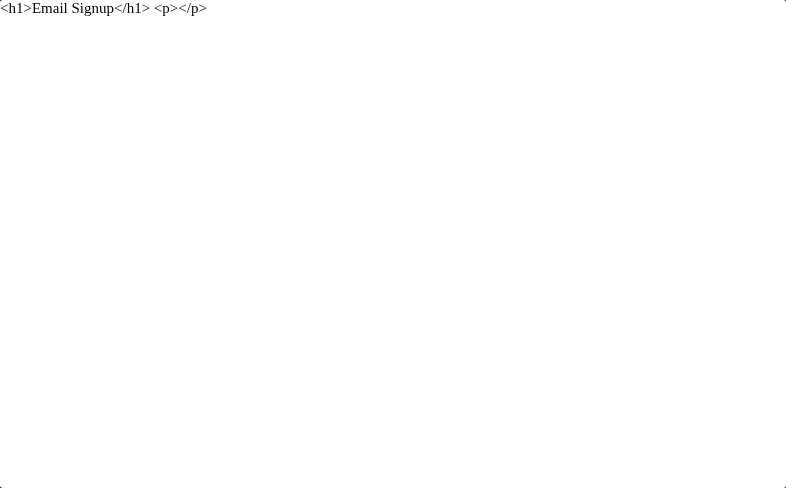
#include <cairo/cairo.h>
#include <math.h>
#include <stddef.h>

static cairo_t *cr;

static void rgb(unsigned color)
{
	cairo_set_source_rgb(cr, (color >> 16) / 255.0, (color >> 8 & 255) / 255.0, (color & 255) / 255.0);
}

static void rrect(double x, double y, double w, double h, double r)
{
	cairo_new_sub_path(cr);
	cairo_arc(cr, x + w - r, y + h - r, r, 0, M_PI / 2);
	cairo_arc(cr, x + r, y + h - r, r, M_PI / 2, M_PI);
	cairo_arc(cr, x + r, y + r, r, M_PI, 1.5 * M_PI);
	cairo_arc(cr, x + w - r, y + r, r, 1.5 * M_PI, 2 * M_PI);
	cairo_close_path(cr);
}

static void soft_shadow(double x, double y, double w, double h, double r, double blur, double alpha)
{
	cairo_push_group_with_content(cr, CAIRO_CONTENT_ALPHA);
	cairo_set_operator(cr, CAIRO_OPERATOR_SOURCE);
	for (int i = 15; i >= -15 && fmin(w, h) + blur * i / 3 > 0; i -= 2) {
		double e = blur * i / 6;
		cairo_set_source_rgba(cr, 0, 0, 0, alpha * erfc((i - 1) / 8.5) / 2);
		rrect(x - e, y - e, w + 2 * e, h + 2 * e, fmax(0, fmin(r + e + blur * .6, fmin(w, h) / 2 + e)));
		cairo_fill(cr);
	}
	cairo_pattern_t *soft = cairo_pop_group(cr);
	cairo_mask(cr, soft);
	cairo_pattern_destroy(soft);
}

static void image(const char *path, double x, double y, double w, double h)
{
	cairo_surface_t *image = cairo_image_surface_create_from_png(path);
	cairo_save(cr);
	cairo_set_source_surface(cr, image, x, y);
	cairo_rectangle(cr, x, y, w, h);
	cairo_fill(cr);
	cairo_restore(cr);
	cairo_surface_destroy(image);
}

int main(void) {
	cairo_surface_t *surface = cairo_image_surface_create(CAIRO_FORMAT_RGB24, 786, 488);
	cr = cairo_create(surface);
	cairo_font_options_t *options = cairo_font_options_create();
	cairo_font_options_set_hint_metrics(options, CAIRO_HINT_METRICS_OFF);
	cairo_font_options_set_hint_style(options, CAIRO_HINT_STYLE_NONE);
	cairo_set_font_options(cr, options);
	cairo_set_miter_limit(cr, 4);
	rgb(0x3d3d3d);
	cairo_paint(cr);
	rgb(0x000000);
	soft_shadow(-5, 5, 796, 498, 8, 10, 0.2);
	image("img/1.png", 0, 0, 786, 488);
	cairo_surface_write_to_png(surface, "page.png");
	cairo_font_options_destroy(options);
	cairo_destroy(cr);
	cairo_surface_destroy(surface);
	return 0;
}
